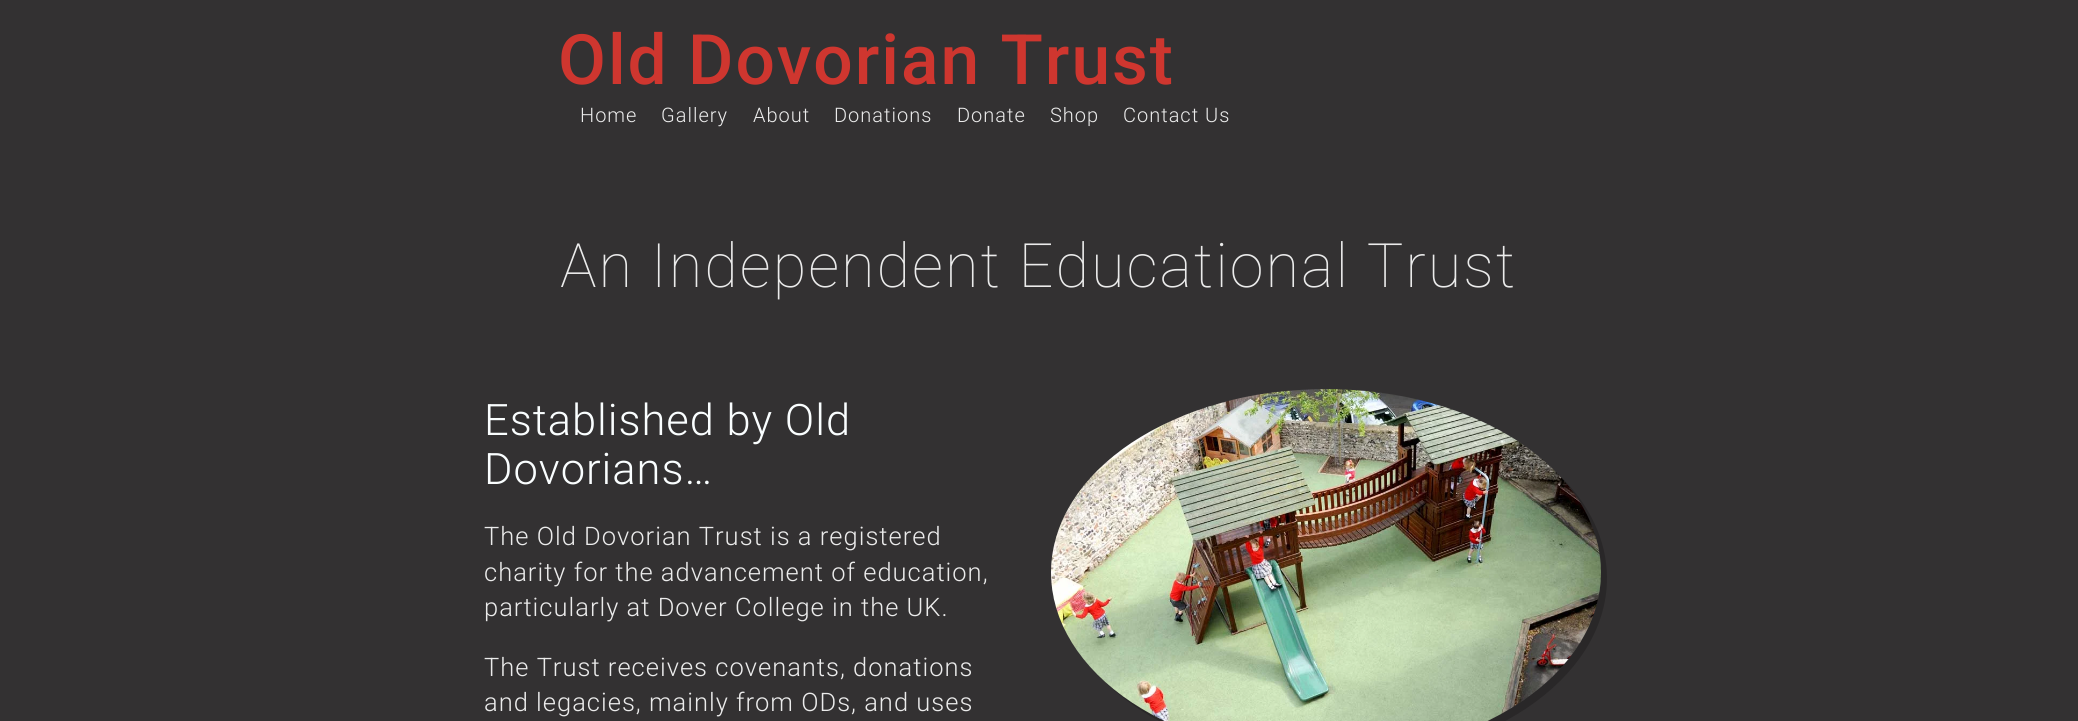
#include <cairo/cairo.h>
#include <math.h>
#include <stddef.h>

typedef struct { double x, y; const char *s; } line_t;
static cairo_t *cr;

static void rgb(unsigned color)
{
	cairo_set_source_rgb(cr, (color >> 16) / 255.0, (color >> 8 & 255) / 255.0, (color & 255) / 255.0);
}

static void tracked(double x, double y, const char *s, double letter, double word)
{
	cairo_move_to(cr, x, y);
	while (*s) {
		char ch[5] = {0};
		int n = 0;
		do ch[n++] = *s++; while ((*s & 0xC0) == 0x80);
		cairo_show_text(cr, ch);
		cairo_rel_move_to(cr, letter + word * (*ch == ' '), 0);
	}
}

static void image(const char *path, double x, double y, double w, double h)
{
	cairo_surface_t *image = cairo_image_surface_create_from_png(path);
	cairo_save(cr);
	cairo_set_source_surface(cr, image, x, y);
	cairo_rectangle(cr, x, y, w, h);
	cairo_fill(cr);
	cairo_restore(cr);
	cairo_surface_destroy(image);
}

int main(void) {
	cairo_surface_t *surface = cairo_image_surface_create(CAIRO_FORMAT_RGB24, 2078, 721);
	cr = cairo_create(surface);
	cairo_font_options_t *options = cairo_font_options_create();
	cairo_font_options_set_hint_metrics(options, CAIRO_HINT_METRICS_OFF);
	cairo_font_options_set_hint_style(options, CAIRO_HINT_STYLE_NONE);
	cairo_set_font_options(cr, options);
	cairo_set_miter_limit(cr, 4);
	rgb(0x333132);
	cairo_paint(cr);
	rgb(0x292728);
	cairo_new_path(cr);
	cairo_move_to(cr, 1100, 677);
	cairo_curve_to(cr, 1149, 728, 1235, 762, 1332, 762);
	cairo_curve_to(cr, 1484, 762, 1607, 680, 1607, 578);
	cairo_curve_to(cr, 1607, 540, 1589, 503, 1558, 474);
	cairo_curve_to(cr, 1585, 502, 1601, 536, 1601, 572);
	cairo_curve_to(cr, 1601, 674, 1478, 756, 1326, 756);
	cairo_curve_to(cr, 1232, 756, 1150, 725, 1100, 677);
	cairo_close_path(cr);
	cairo_fill(cr);
	image("img/1.png", 1051, 389, 550, 332);
	cairo_select_font_face(cr, "Roboto Medium", CAIRO_FONT_SLANT_NORMAL, CAIRO_FONT_WEIGHT_NORMAL);
	cairo_set_font_size(cr, 69.5);
	rgb(0xcf362f);
	tracked(558, 84, "Old Dovorian Trust", 2, 0);
	cairo_select_font_face(cr, "Roboto Light", CAIRO_FONT_SLANT_NORMAL, CAIRO_FONT_WEIGHT_NORMAL);
	cairo_set_font_size(cr, 20);
	rgb(0xebebeb);
	{
		static const line_t items[] = {
			{580, 122, "Home"},
			{661, 122, "Gallery"},
			{753, 122, "About"},
			{834, 122, "Donations"},
			{957, 122, "Donate"},
			{1050, 122, "Shop"},
			{1123, 122, "Contact Us"},
		};
		for (size_t i = 0; i < sizeof items / sizeof *items; i++) {
			tracked(items[i].x, items[i].y, items[i].s, 1, 0);
		}
	}
	cairo_select_font_face(cr, "Roboto Thin", CAIRO_FONT_SLANT_NORMAL, CAIRO_FONT_WEIGHT_NORMAL);
	cairo_set_font_size(cr, 61.25);
	tracked(560, 287, "An Independent Educational Trust", 2, 0);
	cairo_select_font_face(cr, "Roboto Light", CAIRO_FONT_SLANT_NORMAL, CAIRO_FONT_WEIGHT_NORMAL);
	cairo_set_font_size(cr, 43.4);
	rgb(0xfafeff);
	tracked(484, 435, "Established by Old", 1, 0);
	tracked(484, 484, "Dovorians…", 1, 0);
	cairo_set_font_size(cr, 25.5);
	rgb(0xebebeb);
	{
		static const line_t items[] = {
			{484, 545, "The Old Dovorian Trust is a registered"},
			{484, 581, "charity for the advancement of education,"},
			{484, 616, "particularly at Dover College in the UK."},
			{484, 676, "The Trust receives covenants, donations"},
			{484, 711, "and legacies, mainly from ODs, and uses"},
		};
		for (size_t i = 0; i < sizeof items / sizeof *items; i++) {
			tracked(items[i].x, items[i].y, items[i].s, 1, 0);
		}
	}
	cairo_surface_write_to_png(surface, "page.png");
	cairo_font_options_destroy(options);
	cairo_destroy(cr);
	cairo_surface_destroy(surface);
	return 0;
}
